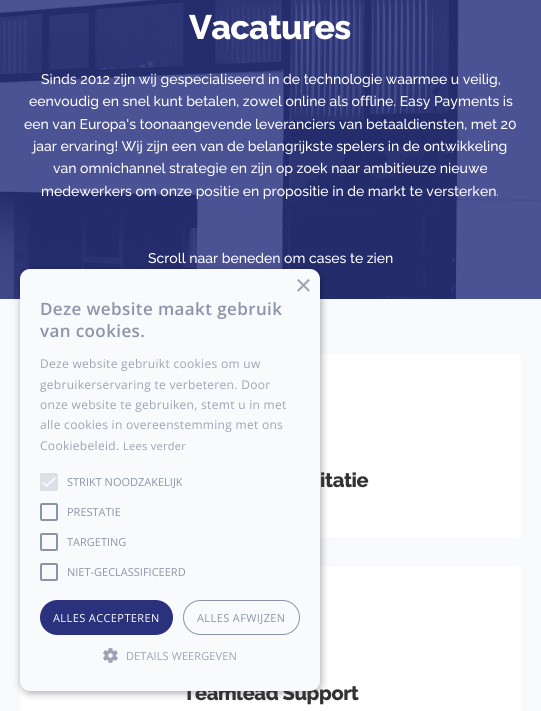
#include <cairo/cairo.h>
#include <math.h>
#include <stddef.h>

typedef struct { double x, y; const char *s; } line_t;
static cairo_t *cr;

static void rgb(unsigned color)
{
	cairo_set_source_rgb(cr, (color >> 16) / 255.0, (color >> 8 & 255) / 255.0, (color & 255) / 255.0);
}

static void tracked(double x, double y, const char *s, double letter, double word)
{
	cairo_move_to(cr, x, y);
	while (*s) {
		char ch[5] = {0};
		int n = 0;
		do ch[n++] = *s++; while ((*s & 0xC0) == 0x80);
		cairo_show_text(cr, ch);
		cairo_rel_move_to(cr, letter + word * (*ch == ' '), 0);
	}
}

static void rrect(double x, double y, double w, double h, double r)
{
	cairo_new_sub_path(cr);
	cairo_arc(cr, x + w - r, y + h - r, r, 0, M_PI / 2);
	cairo_arc(cr, x + r, y + h - r, r, M_PI / 2, M_PI);
	cairo_arc(cr, x + r, y + r, r, M_PI, 1.5 * M_PI);
	cairo_arc(cr, x + w - r, y + r, r, 1.5 * M_PI, 2 * M_PI);
	cairo_close_path(cr);
}

static void soft_shadow(double x, double y, double w, double h, double r, double blur, double alpha)
{
	cairo_push_group_with_content(cr, CAIRO_CONTENT_ALPHA);
	cairo_set_operator(cr, CAIRO_OPERATOR_SOURCE);
	for (int i = 15; i >= -15 && fmin(w, h) + blur * i / 3 > 0; i -= 2) {
		double e = blur * i / 6;
		cairo_set_source_rgba(cr, 0, 0, 0, alpha * erfc((i - 1) / 8.5) / 2);
		rrect(x - e, y - e, w + 2 * e, h + 2 * e, fmax(0, fmin(r + e + blur * .6, fmin(w, h) / 2 + e)));
		cairo_fill(cr);
	}
	cairo_pattern_t *soft = cairo_pop_group(cr);
	cairo_mask(cr, soft);
	cairo_pattern_destroy(soft);
}

static void image(const char *path, double x, double y, double w, double h)
{
	cairo_surface_t *image = cairo_image_surface_create_from_png(path);
	cairo_save(cr);
	cairo_set_source_surface(cr, image, x, y);
	cairo_rectangle(cr, x, y, w, h);
	cairo_fill(cr);
	cairo_restore(cr);
	cairo_surface_destroy(image);
}

int main(void) {
	cairo_surface_t *surface = cairo_image_surface_create(CAIRO_FORMAT_RGB24, 541, 711);
	cr = cairo_create(surface);
	cairo_font_options_t *options = cairo_font_options_create();
	cairo_font_options_set_hint_metrics(options, CAIRO_HINT_METRICS_OFF);
	cairo_font_options_set_hint_style(options, CAIRO_HINT_STYLE_NONE);
	cairo_set_font_options(cr, options);
	cairo_set_miter_limit(cr, 4);
	rgb(0xf9fafb);
	cairo_paint(cr);
	image("img/1.png", 0, 0, 541, 299);
	rgb(0xffffff);
	rrect(20, 354, 501, 183, 4);
	cairo_fill(cr);
	rrect(20, 567, 501, 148, 4);
	cairo_fill(cr);
	rgb(0x000000);
	soft_shadow(21, 271, 300, 422, 10, 4, 0.35);
	cairo_select_font_face(cr, "Raleway ExtraBold", CAIRO_FONT_SLANT_NORMAL, CAIRO_FONT_WEIGHT_NORMAL);
	cairo_set_font_size(cr, 34);
	rgb(0xffffff);
	tracked(189, 39, "Vacatures", -0.75, 0);
	cairo_select_font_face(cr, "Raleway Medium", CAIRO_FONT_SLANT_NORMAL, CAIRO_FONT_WEIGHT_NORMAL);
	cairo_set_font_size(cr, 14);
	{
		static const line_t items[] = {
			{41, 84, "Sinds 2012 zijn wij gespecialiseerd in de technologie waarmee u veilig,"},
			{29, 106, "eenvoudig en snel kunt betalen, zowel online als offline. Easy Payments is"},
			{24, 129, "een van Europa's toonaangevende leveranciers van betaaldiensten, met 20"},
			{33, 151, "jaar ervaring! Wij zijn een van de belangrijkste spelers in de ontwikkeling"},
			{53, 173, "van omnichannel strategie en zijn op zoek naar ambitieuze nieuwe"},
			{41, 196, "medewerkers om onze positie en propositie in de markt te versterken."},
			{148, 263, "Scroll naar beneden om cases te zien"},
		};
		for (size_t i = 0; i < sizeof items / sizeof *items; i++) {
			cairo_move_to(cr, items[i].x, items[i].y);
			cairo_show_text(cr, items[i].s);
		}
	}
	cairo_select_font_face(cr, "Raleway ExtraBold", CAIRO_FONT_SLANT_NORMAL, CAIRO_FONT_WEIGHT_NORMAL);
	cairo_set_font_size(cr, 20);
	rgb(0x333333);
	tracked(320, 487, "itatie", -0.4, 0);
	tracked(183, 700, "Teamlead Support", -0.4, 0);
	rgb(0xf9fafb);
	rrect(20, 269, 300, 422, 10);
	cairo_fill(cr);
	cairo_select_font_face(cr, "Liberation Sans", CAIRO_FONT_SLANT_NORMAL, CAIRO_FONT_WEIGHT_NORMAL);
	cairo_set_font_size(cr, 29);
	rgb(0x9ca3b5);
	cairo_move_to(cr, 295, 295);
	cairo_show_text(cr, "×");
	image("img/2.png", 103, 648, 15, 15);
	cairo_select_font_face(cr, "Open Sans", CAIRO_FONT_SLANT_NORMAL, CAIRO_FONT_WEIGHT_NORMAL);
	cairo_set_font_size(cr, 11);
	tracked(126, 660, "DETAILS WEERGEVEN", 0.1, 0);
	rrect(41, 564, 16, 16, 1);
	rgb(0x8b94a9);
	cairo_stroke(cr);
	rrect(41, 534, 16, 16, 1);
	cairo_stroke(cr);
	rrect(41, 504, 16, 16, 1);
	cairo_stroke(cr);
	rgb(0xdcdfe6);
	rrect(40, 473, 18, 18, 2);
	cairo_fill(cr);
	cairo_new_path(cr);
	cairo_move_to(cr, 43, 482.5);
	cairo_line_to(cr, 46.5, 486);
	cairo_line_to(cr, 55.5, 477.5);
	rgb(0xf9fafb);
	cairo_set_line_width(cr, 1.8);
	cairo_stroke(cr);
	rgb(0x9ca3b5);
	tracked(123, 450, "Lees verder", 0.3, 0);
	cairo_set_font_size(cr, 12);
	{
		static const line_t items[] = {
			{40, 450, "Cookiebeleid."},
			{40, 429, "alle cookies in overeenstemming met ons"},
			{40, 409, "onze website te gebruiken, stemt u in met"},
			{40, 389, "gebruikerservaring te verbeteren. Door"},
			{40, 368, "Deze website gebruikt cookies om uw"},
		};
		for (size_t i = 0; i < sizeof items / sizeof *items; i++) {
			tracked(items[i].x, items[i].y, items[i].s, 0.3, 0);
		}
	}
	rrect(183.5, 600.5, 116, 34, 17);
	rgb(0x8b94a9);
	cairo_set_line_width(cr, 1);
	cairo_stroke(cr);
	cairo_set_font_size(cr, 11);
	tracked(197, 622, "ALLES AFWIJZEN", 0.4, 0);
	rgb(0x2a317d);
	rrect(40, 600, 133, 35, 17.5);
	cairo_fill(cr);
	rgb(0xffffff);
	tracked(53, 622, "ALLES ACCEPTEREN", 0.4, 0);
	rgb(0x8b94a9);
	{
		static const line_t items[] = {
			{67, 576, "NIET-GECLASSIFICEERD"},
			{67, 546, "TARGETING"},
			{67, 516, "PRESTATIE"},
			{67, 486, "STRIKT NOODZAKELIJK"},
		};
		for (size_t i = 0; i < sizeof items / sizeof *items; i++) {
			cairo_move_to(cr, items[i].x, items[i].y);
			cairo_show_text(cr, items[i].s);
		}
	}
	cairo_select_font_face(cr, "Open Sans SemiBold", CAIRO_FONT_SLANT_NORMAL, CAIRO_FONT_WEIGHT_NORMAL);
	cairo_set_font_size(cr, 17);
	tracked(40, 337, "van cookies.", 0.4, 0);
	tracked(40, 315, "Deze website maakt gebruik", 0.4, 0);
	cairo_surface_write_to_png(surface, "page.png");
	cairo_font_options_destroy(options);
	cairo_destroy(cr);
	cairo_surface_destroy(surface);
	return 0;
}
